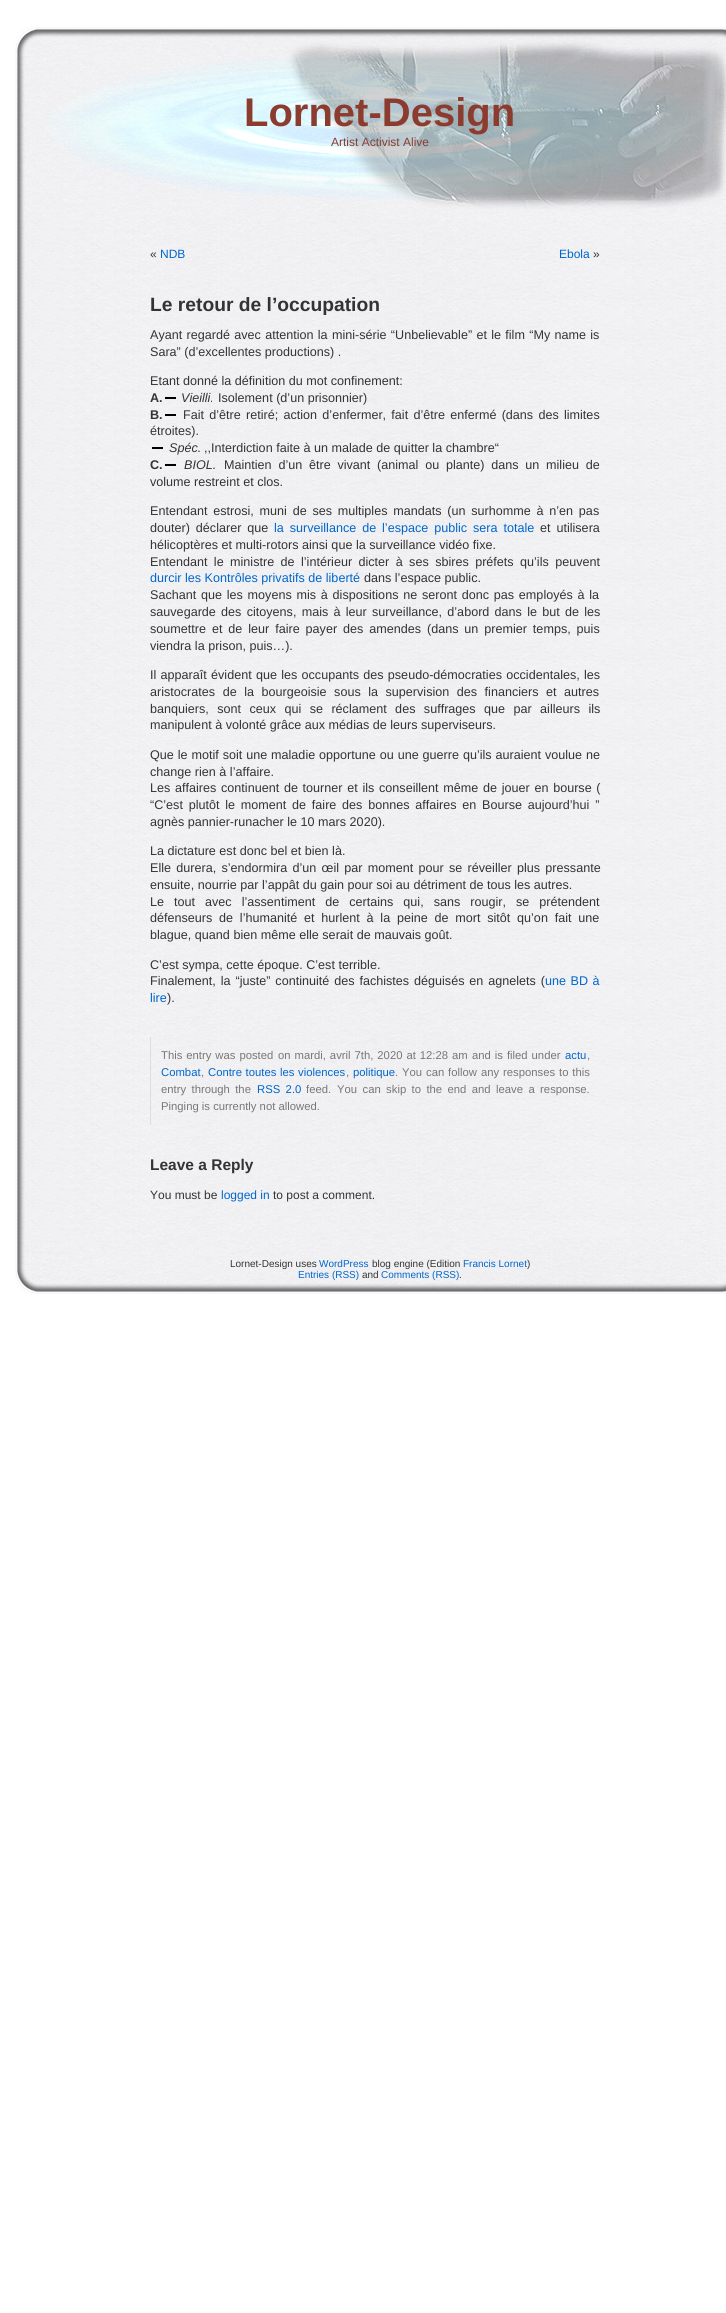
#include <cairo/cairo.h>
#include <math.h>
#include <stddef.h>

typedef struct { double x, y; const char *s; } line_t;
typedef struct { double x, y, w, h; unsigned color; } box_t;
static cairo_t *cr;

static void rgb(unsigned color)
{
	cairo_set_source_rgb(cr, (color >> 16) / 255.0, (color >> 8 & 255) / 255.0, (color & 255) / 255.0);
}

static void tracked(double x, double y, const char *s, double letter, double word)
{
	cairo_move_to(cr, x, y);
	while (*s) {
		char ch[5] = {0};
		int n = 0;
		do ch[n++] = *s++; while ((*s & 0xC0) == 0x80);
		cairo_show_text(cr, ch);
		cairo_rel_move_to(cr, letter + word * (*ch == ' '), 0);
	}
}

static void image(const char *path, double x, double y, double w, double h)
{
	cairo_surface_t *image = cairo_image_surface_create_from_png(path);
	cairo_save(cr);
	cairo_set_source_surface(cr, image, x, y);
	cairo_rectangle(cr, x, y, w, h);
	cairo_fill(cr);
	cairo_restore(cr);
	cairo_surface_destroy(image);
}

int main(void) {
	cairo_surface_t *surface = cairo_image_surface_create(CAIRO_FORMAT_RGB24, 726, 2313);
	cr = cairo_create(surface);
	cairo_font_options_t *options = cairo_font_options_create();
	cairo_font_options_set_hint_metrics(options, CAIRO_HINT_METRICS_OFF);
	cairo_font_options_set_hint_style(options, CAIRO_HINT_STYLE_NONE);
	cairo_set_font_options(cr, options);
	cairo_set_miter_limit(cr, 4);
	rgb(0xffffff);
	cairo_paint(cr);
	image("img/1.png", 15, 220, 711, 1018);
	image("img/2.png", 15, 27, 711, 193);
	{
		static const box_t items[] = {
			{165, 397, 11, 2, 0x000000},
			{165, 414, 11, 2, 0x000000},
			{152, 447, 11, 2, 0x000000},
			{165, 464, 11, 2, 0x000000},
			{150, 1037, 1, 88, 0xdddddd},
		};
		for (size_t i = 0; i < sizeof items / sizeof *items; i++) {
			rgb(items[i].color);
			cairo_rectangle(cr, items[i].x, items[i].y, items[i].w, items[i].h);
			cairo_fill(cr);
		}
	}
	image("img/3.png", 15, 1238, 711, 56);
	cairo_select_font_face(cr, "Liberation Sans", CAIRO_FONT_SLANT_NORMAL, CAIRO_FONT_WEIGHT_BOLD);
	cairo_set_font_size(cr, 40);
	rgb(0x8c3c2f);
	cairo_move_to(cr, 244, 126);
	cairo_show_text(cr, "Lornet-Design");
	cairo_select_font_face(cr, "Liberation Sans", CAIRO_FONT_SLANT_NORMAL, CAIRO_FONT_WEIGHT_NORMAL);
	cairo_set_font_size(cr, 12);
	cairo_move_to(cr, 331, 146);
	cairo_show_text(cr, "Artist Activist Alive");
	rgb(0x333333);
	cairo_move_to(cr, 150, 258);
	cairo_show_text(cr, "«");
	rgb(0x0066cc);
	cairo_move_to(cr, 160, 258);
	cairo_show_text(cr, "NDB");
	cairo_move_to(cr, 559, 258);
	cairo_show_text(cr, "Ebola");
	rgb(0x333333);
	cairo_move_to(cr, 593, 258);
	cairo_show_text(cr, "»");
	cairo_select_font_face(cr, "Liberation Sans", CAIRO_FONT_SLANT_NORMAL, CAIRO_FONT_WEIGHT_BOLD);
	cairo_set_font_size(cr, 19.25);
	cairo_move_to(cr, 150, 311);
	cairo_show_text(cr, "Le retour de l’occupation");
	cairo_select_font_face(cr, "Liberation Sans", CAIRO_FONT_SLANT_NORMAL, CAIRO_FONT_WEIGHT_NORMAL);
	cairo_set_font_size(cr, 12.6);
	tracked(150, 339, "Ayant regardé avec attention la mini-série “Unbelievable” et le film “My name is", 0, 0.8);
	cairo_move_to(cr, 150, 356);
	cairo_show_text(cr, "Sara” (d’excellentes productions) .");
	cairo_move_to(cr, 150, 385);
	cairo_show_text(cr, "Etant donné la définition du mot confinement:");
	cairo_select_font_face(cr, "Liberation Sans", CAIRO_FONT_SLANT_NORMAL, CAIRO_FONT_WEIGHT_BOLD);
	cairo_move_to(cr, 150, 402);
	cairo_show_text(cr, "A.");
	cairo_select_font_face(cr, "Liberation Sans", CAIRO_FONT_SLANT_ITALIC, CAIRO_FONT_WEIGHT_NORMAL);
	cairo_move_to(cr, 181, 402);
	cairo_show_text(cr, "Vieilli.");
	cairo_select_font_face(cr, "Liberation Sans", CAIRO_FONT_SLANT_NORMAL, CAIRO_FONT_WEIGHT_NORMAL);
	cairo_move_to(cr, 218, 402);
	cairo_show_text(cr, "Isolement (d’un prisonnier)");
	cairo_select_font_face(cr, "Liberation Sans", CAIRO_FONT_SLANT_NORMAL, CAIRO_FONT_WEIGHT_BOLD);
	cairo_move_to(cr, 150, 419);
	cairo_show_text(cr, "B.");
	cairo_select_font_face(cr, "Liberation Sans", CAIRO_FONT_SLANT_NORMAL, CAIRO_FONT_WEIGHT_NORMAL);
	tracked(183, 419, "Fait d’être retiré; action d’enfermer, fait d’être enfermé (dans des limites", 0, 1.75);
	cairo_move_to(cr, 150, 435);
	cairo_show_text(cr, "étroites).");
	cairo_select_font_face(cr, "Liberation Sans", CAIRO_FONT_SLANT_ITALIC, CAIRO_FONT_WEIGHT_NORMAL);
	cairo_move_to(cr, 169, 452);
	cairo_show_text(cr, "Spéc.");
	cairo_select_font_face(cr, "Liberation Sans", CAIRO_FONT_SLANT_NORMAL, CAIRO_FONT_WEIGHT_NORMAL);
	cairo_move_to(cr, 204, 452);
	cairo_show_text(cr, ",,Interdiction faite à un malade de quitter la chambre“");
	cairo_select_font_face(cr, "Liberation Sans", CAIRO_FONT_SLANT_NORMAL, CAIRO_FONT_WEIGHT_BOLD);
	cairo_move_to(cr, 150, 469);
	cairo_show_text(cr, "C.");
	cairo_select_font_face(cr, "Liberation Sans", CAIRO_FONT_SLANT_ITALIC, CAIRO_FONT_WEIGHT_NORMAL);
	cairo_move_to(cr, 184, 469);
	cairo_show_text(cr, "BIOL.");
	cairo_select_font_face(cr, "Liberation Sans", CAIRO_FONT_SLANT_NORMAL, CAIRO_FONT_WEIGHT_NORMAL);
	tracked(224, 469, "Maintien d’un être vivant (animal ou plante) dans un milieu de", 0, 3.25);
	cairo_move_to(cr, 150, 486);
	cairo_show_text(cr, "volume restreint et clos.");
	tracked(150, 515, "Entendant estrosi, muni de ses multiples mandats (un surhomme à n’en pas", 0, 2.25);
	tracked(150, 532, "douter) déclarer que", 0, 2.4);
	rgb(0x0066cc);
	tracked(274, 532, "la surveillance de l’espace public sera totale", 0, 2.4);
	rgb(0x333333);
	tracked(540, 532, "et utilisera", 0, 2.4);
	cairo_move_to(cr, 150, 549);
	cairo_show_text(cr, "hélicoptères et multi-rotors ainsi que la surveillance vidéo fixe.");
	tracked(150, 566, "Entendant le ministre de l’intérieur dicter à ses sbires préfets qu’ils peuvent", 0, 2.9);
	rgb(0x0066cc);
	cairo_move_to(cr, 150, 582);
	cairo_show_text(cr, "durcir les Kontrôles privatifs de liberté");
	rgb(0x333333);
	cairo_move_to(cr, 364, 582);
	cairo_show_text(cr, "dans l’espace public.");
	tracked(150, 599, "Sachant que les moyens mis à dispositions ne seront donc pas employés à la", 0, 1.25);
	tracked(150, 616, "sauvegarde des citoyens, mais à leur surveillance, d’abord dans le but de les", 0, 1.75);
	tracked(150, 633, "soumettre et de leur faire payer des amendes (dans un premier temps, puis", 0, 2.4);
	cairo_move_to(cr, 150, 650);
	cairo_show_text(cr, "viendra la prison, puis…).");
	tracked(150, 679, "Il apparaît évident que les occupants des pseudo-démocraties occidentales, les", 0, 0.75);
	tracked(150, 696, "aristocrates de la bourgeoisie sous la supervision des financiers et autres", 0, 4);
	tracked(150, 713, "banquiers, sont ceux qui se réclament des suffrages que par ailleurs ils", 0, 4.9);
	cairo_move_to(cr, 150, 729);
	cairo_show_text(cr, "manipulent à volonté grâce aux médias de leurs superviseurs.");
	tracked(150, 759, "Que le motif soit une maladie opportune ou une guerre qu’ils auraient voulue ne", 0, 0.4);
	cairo_move_to(cr, 150, 776);
	cairo_show_text(cr, "change rien à l’affaire.");
	tracked(150, 792, "Les affaires continuent de tourner et ils conseillent même de jouer en bourse (", 0, 1.2);
	tracked(150, 809, "“C’est plutôt le moment de faire des bonnes affaires en Bourse aujourd’hui ”", 0, 2.25);
	cairo_move_to(cr, 150, 826);
	cairo_show_text(cr, "agnès pannier-runacher le 10 mars 2020).");
	cairo_move_to(cr, 150, 855);
	cairo_show_text(cr, "La dictature est donc bel et bien là.");
	tracked(150, 872, "Elle durera, s’endormira d’un œil par moment pour se réveiller plus pressante", 0, 1.75);
	cairo_move_to(cr, 150, 889);
	cairo_show_text(cr, "ensuite, nourrie par l’appât du gain pour soi au détriment de tous les autres.");
	tracked(150, 906, "Le tout avec l’assentiment de certains qui, sans rougir, se prétendent", 0, 6.5);
	tracked(150, 922, "défenseurs de l’humanité et hurlent à la peine de mort sitôt qu’on fait une", 0, 3.25);
	cairo_move_to(cr, 150, 939);
	cairo_show_text(cr, "blague, quand bien même elle serait de mauvais goût.");
	cairo_move_to(cr, 150, 969);
	cairo_show_text(cr, "C’est sympa, cette époque. C’est terrible.");
	tracked(150, 985, "Finalement, la “juste” continuité des fachistes déguisés en agnelets (", 0, 1.4);
	rgb(0x0066cc);
	tracked(545, 985, "une BD à", 0, 1);
	cairo_move_to(cr, 150, 1002);
	cairo_show_text(cr, "lire");
	rgb(0x333333);
	cairo_move_to(cr, 167, 1002);
	cairo_show_text(cr, ").");
	cairo_set_font_size(cr, 11.3);
	rgb(0x777777);
	{
		static const line_t items[] = {
			{161, 1059, "This entry was posted"},
			{278, 1059, "on mardi, avril 7th, 2020 at 12:28 am"},
			{472, 1059, "and is filed under"},
		};
		for (size_t i = 0; i < sizeof items / sizeof *items; i++) {
			tracked(items[i].x, items[i].y, items[i].s, 0, 0.8);
		}
	}
	rgb(0x0066cc);
	cairo_move_to(cr, 565, 1059);
	cairo_show_text(cr, "actu");
	rgb(0x777777);
	cairo_move_to(cr, 587, 1059);
	cairo_show_text(cr, ",");
	rgb(0x0066cc);
	cairo_move_to(cr, 161, 1076);
	cairo_show_text(cr, "Combat");
	rgb(0x777777);
	cairo_move_to(cr, 201, 1076);
	cairo_show_text(cr, ",");
	rgb(0x0066cc);
	tracked(208, 1076, "Contre toutes les violences", 0, 0.5);
	rgb(0x777777);
	cairo_move_to(cr, 346, 1076);
	cairo_show_text(cr, ",");
	rgb(0x0066cc);
	cairo_move_to(cr, 353, 1076);
	cairo_show_text(cr, "politique");
	rgb(0x777777);
	cairo_move_to(cr, 395, 1076);
	cairo_show_text(cr, ".");
	tracked(402, 1076, "You can follow any responses to this", 0, 0.75);
	tracked(161, 1093, "entry through the", 0, 2.25);
	rgb(0x0066cc);
	tracked(257, 1093, "RSS 2.0", 0, 2.25);
	rgb(0x777777);
	cairo_move_to(cr, 306, 1093);
	cairo_show_text(cr, "feed.");
	tracked(337, 1093, "You can skip to the end and leave a response.", 0, 2.25);
	cairo_move_to(cr, 161, 1110);
	cairo_show_text(cr, "Pinging is currently not allowed.");
	cairo_select_font_face(cr, "Liberation Sans", CAIRO_FONT_SLANT_NORMAL, CAIRO_FONT_WEIGHT_BOLD);
	cairo_set_font_size(cr, 15.5);
	rgb(0x333333);
	cairo_move_to(cr, 150, 1170);
	cairo_show_text(cr, "Leave a Reply");
	cairo_select_font_face(cr, "Liberation Sans", CAIRO_FONT_SLANT_NORMAL, CAIRO_FONT_WEIGHT_NORMAL);
	cairo_set_font_size(cr, 12);
	cairo_move_to(cr, 150, 1199);
	cairo_show_text(cr, "You must be");
	rgb(0x0066cc);
	cairo_move_to(cr, 221, 1199);
	cairo_show_text(cr, "logged in");
	rgb(0x333333);
	cairo_move_to(cr, 273, 1199);
	cairo_show_text(cr, "to post a comment.");
	cairo_set_font_size(cr, 10);
	cairo_move_to(cr, 230, 1267);
	cairo_show_text(cr, "Lornet-Design uses");
	rgb(0x0066cc);
	cairo_move_to(cr, 319, 1267);
	cairo_show_text(cr, "WordPress");
	rgb(0x333333);
	cairo_move_to(cr, 372, 1267);
	cairo_show_text(cr, "blog engine (Edition");
	rgb(0x0066cc);
	cairo_move_to(cr, 463, 1267);
	cairo_show_text(cr, "Francis Lornet");
	rgb(0x333333);
	cairo_move_to(cr, 527, 1267);
	cairo_show_text(cr, ")");
	rgb(0x0066cc);
	cairo_move_to(cr, 298, 1278);
	cairo_show_text(cr, "Entries (RSS)");
	rgb(0x333333);
	cairo_move_to(cr, 362, 1278);
	cairo_show_text(cr, "and");
	rgb(0x0066cc);
	cairo_move_to(cr, 381, 1278);
	cairo_show_text(cr, "Comments (RSS)");
	rgb(0x333333);
	cairo_move_to(cr, 459, 1278);
	cairo_show_text(cr, ".");
	cairo_surface_write_to_png(surface, "page.png");
	cairo_font_options_destroy(options);
	cairo_destroy(cr);
	cairo_surface_destroy(surface);
	return 0;
}
